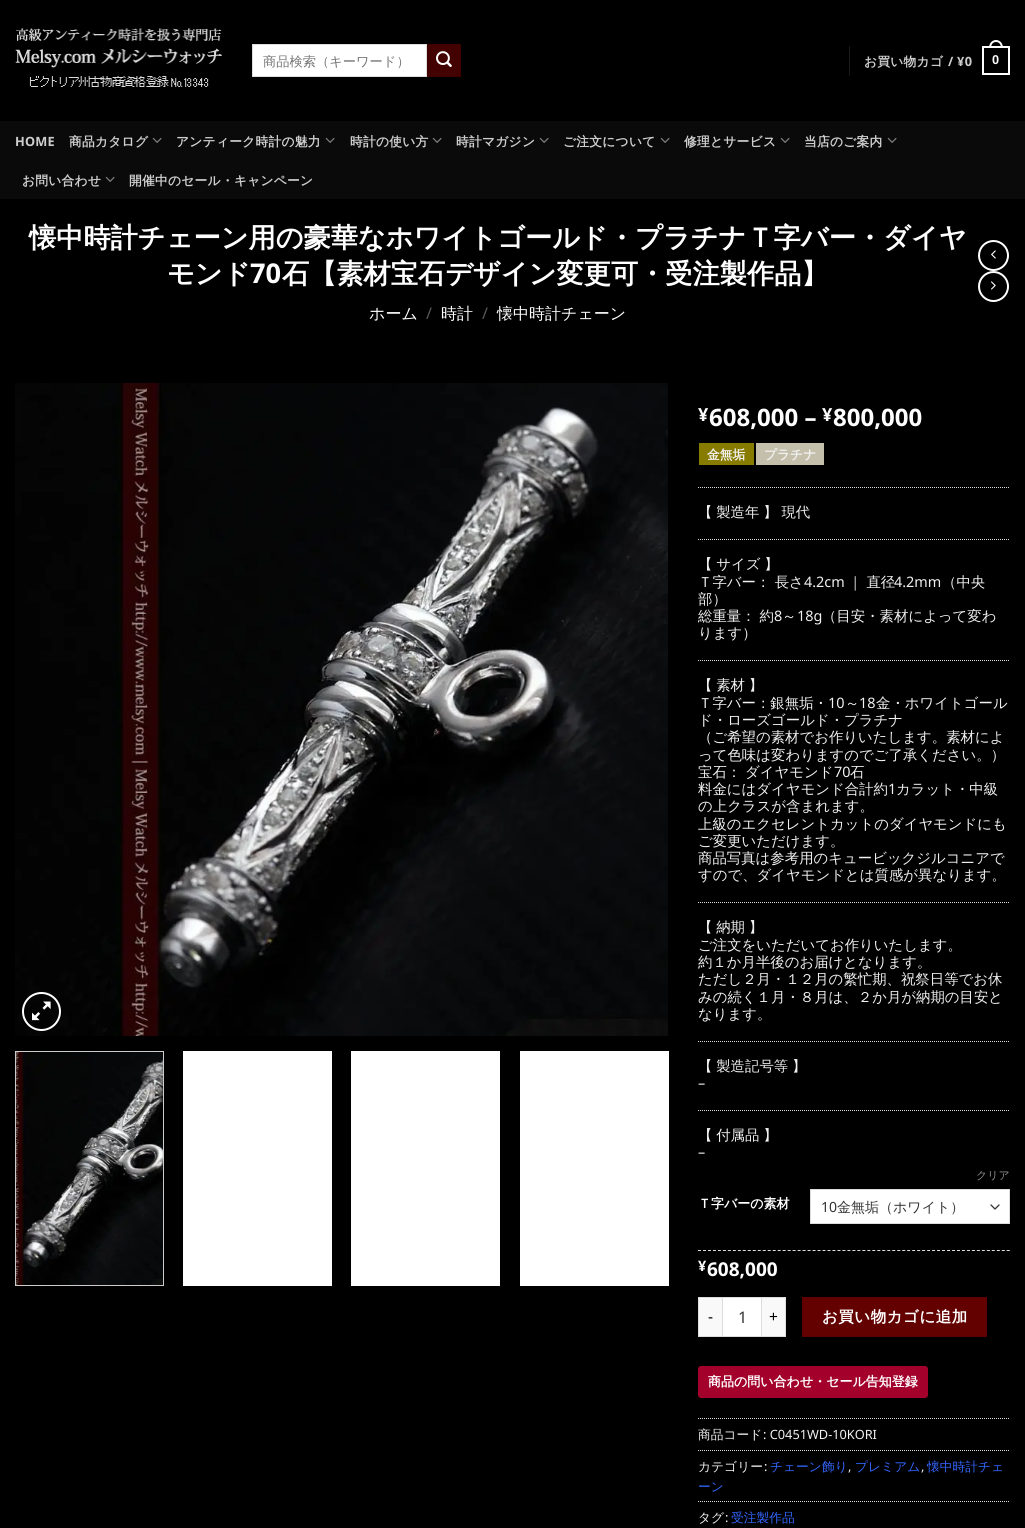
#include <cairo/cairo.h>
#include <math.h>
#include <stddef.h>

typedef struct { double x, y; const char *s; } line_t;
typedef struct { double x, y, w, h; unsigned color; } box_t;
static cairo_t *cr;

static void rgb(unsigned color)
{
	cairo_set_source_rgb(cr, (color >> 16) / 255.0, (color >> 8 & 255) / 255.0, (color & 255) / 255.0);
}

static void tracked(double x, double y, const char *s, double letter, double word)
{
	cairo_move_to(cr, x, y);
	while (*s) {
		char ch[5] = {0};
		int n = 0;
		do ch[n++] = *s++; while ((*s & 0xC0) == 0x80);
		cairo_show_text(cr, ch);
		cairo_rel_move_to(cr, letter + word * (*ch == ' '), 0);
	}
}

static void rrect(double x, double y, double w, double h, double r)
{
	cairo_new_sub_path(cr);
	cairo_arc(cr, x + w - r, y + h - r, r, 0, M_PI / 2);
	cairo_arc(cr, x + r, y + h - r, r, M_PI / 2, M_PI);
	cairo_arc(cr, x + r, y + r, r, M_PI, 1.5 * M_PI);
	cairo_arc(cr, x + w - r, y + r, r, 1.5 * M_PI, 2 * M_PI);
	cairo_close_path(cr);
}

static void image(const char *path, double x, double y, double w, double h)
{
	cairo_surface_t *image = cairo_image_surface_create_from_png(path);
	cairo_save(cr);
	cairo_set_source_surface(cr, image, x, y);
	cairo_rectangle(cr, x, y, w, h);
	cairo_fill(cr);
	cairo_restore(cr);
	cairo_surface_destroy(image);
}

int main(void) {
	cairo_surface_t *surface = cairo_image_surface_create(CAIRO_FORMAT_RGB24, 1025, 1528);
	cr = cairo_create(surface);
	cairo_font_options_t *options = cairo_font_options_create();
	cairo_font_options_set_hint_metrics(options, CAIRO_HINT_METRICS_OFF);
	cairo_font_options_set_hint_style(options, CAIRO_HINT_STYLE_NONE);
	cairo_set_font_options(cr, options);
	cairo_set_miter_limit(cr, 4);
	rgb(0x000000);
	cairo_paint(cr);
	image("img/1.png", 15, 28, 207, 59);
	rgb(0xffffff);
	cairo_rectangle(cr, 252.5, 44.5, 174, 32);
	cairo_fill_preserve(cr);
	rgb(0xdddddd);
	cairo_set_line_width(cr, 1);
	cairo_stroke(cr);
	rgb(0x430101);
	cairo_rectangle(cr, 427.5, 44.5, 33, 32);
	cairo_fill_preserve(cr);
	rgb(0x400101);
	cairo_stroke(cr);
	image("img/2.png", 436, 51, 16, 16);
	rgb(0x1a1a1a);
	cairo_rectangle(cr, 849, 46, 1, 30);
	cairo_fill(cr);
	cairo_rectangle(cr, 983, 47, 26, 27);
	rgb(0xffffff);
	cairo_set_line_width(cr, 2);
	cairo_stroke(cr);
	cairo_set_fill_rule(cr, CAIRO_FILL_RULE_EVEN_ODD);
	cairo_new_path(cr);
	cairo_move_to(cr, 996, 40);
	cairo_curve_to(cr, 1000.5, 40, 1003, 44, 1003, 48);
	cairo_line_to(cr, 989, 48);
	cairo_curve_to(cr, 989, 44, 991.5, 40, 996, 40);
	cairo_close_path(cr);
	cairo_move_to(cr, 996, 42);
	cairo_curve_to(cr, 999.5, 42, 1001, 45, 1001, 48);
	cairo_line_to(cr, 991, 48);
	cairo_curve_to(cr, 991, 45, 992.5, 42, 996, 42);
	cairo_close_path(cr);
	cairo_fill(cr);
	rgb(0x0a0a0a);
	cairo_rectangle(cr, 0, 121, 1025, 78);
	cairo_fill(cr);
	image("img/3.png", 152, 137, 10, 6);
	image("img/3.png", 325, 137, 10, 6);
	image("img/3.png", 432, 137, 10, 6);
	image("img/3.png", 539, 137, 10, 6);
	image("img/3.png", 660, 137, 10, 6);
	image("img/3.png", 780, 137, 10, 6);
	image("img/3.png", 887, 137, 10, 6);
	image("img/3.png", 105, 176, 10, 6);
	cairo_arc(cr, 993.5, 255.5, 14.5, 0, 2 * M_PI);
	rgb(0xffffff);
	cairo_stroke(cr);
	image("img/4.png", 991, 250, 5, 9);
	cairo_arc(cr, 993.5, 286.5, 14.5, 0, 2 * M_PI);
	cairo_stroke(cr);
	image("img/5.png", 991, 281, 5, 9);
	image("img/6.png", 15, 383, 653, 653);
	cairo_arc(cr, 41.5, 1011.5, 18.5, 0, 2 * M_PI);
	cairo_stroke(cr);
	image("img/7.png", 32, 1001, 19, 20);
	cairo_rectangle(cr, 15.5, 1051.5, 148, 234);
	rgb(0xcccccc);
	cairo_set_line_width(cr, 1);
	cairo_stroke(cr);
	image("img/8.png", 16, 1052, 147, 233);
	{
		static const box_t items[] = {
			{183, 1051, 149, 235, 0xffffff},
			{351, 1051, 149, 235, 0xffffff},
			{520, 1051, 149, 235, 0xffffff},
			{699, 443, 55, 22, 0x887c00},
			{756, 443, 68, 22, 0xc4bfab},
		};
		for (size_t i = 0; i < sizeof items / sizeof *items; i++) {
			rgb(items[i].color);
			cairo_rectangle(cr, items[i].x, items[i].y, items[i].w, items[i].h);
			cairo_fill(cr);
		}
	}
	cairo_new_path(cr);
	cairo_move_to(cr, 698, 487.5);
	cairo_line_to(cr, 1010, 487.5);
	rgb(0xdddddd);
	cairo_set_dash(cr, (double[]){1, 1}, 2, 0);
	cairo_stroke(cr);
	cairo_new_path(cr);
	cairo_move_to(cr, 698, 539.5);
	cairo_line_to(cr, 1010, 539.5);
	cairo_stroke(cr);
	cairo_new_path(cr);
	cairo_move_to(cr, 698, 660.5);
	cairo_line_to(cr, 1010, 660.5);
	cairo_stroke(cr);
	cairo_new_path(cr);
	cairo_move_to(cr, 698, 902.5);
	cairo_line_to(cr, 1010, 902.5);
	cairo_stroke(cr);
	cairo_new_path(cr);
	cairo_move_to(cr, 698, 1041.5);
	cairo_line_to(cr, 1010, 1041.5);
	cairo_stroke(cr);
	cairo_new_path(cr);
	cairo_move_to(cr, 698, 1110.5);
	cairo_line_to(cr, 1010, 1110.5);
	cairo_stroke(cr);
	rgb(0xffffff);
	cairo_rectangle(cr, 811, 1190, 198, 33);
	cairo_fill(cr);
	cairo_new_path(cr);
	cairo_move_to(cr, 991, 1205);
	cairo_line_to(cr, 995, 1209);
	cairo_line_to(cr, 999, 1205);
	rgb(0x333333);
	cairo_set_line_width(cr, 1.3);
	cairo_set_line_cap(cr, CAIRO_LINE_CAP_ROUND);
	cairo_set_line_join(cr, CAIRO_LINE_JOIN_ROUND);
	cairo_set_dash(cr, NULL, 0, 0);
	cairo_stroke(cr);
	cairo_rectangle(cr, 810.5, 1189.5, 199, 34);
	rgb(0xdddddd);
	cairo_set_line_width(cr, 1);
	cairo_set_line_cap(cr, CAIRO_LINE_CAP_BUTT);
	cairo_set_line_join(cr, CAIRO_LINE_JOIN_MITER);
	cairo_stroke(cr);
	cairo_new_path(cr);
	cairo_move_to(cr, 698, 1250.5);
	cairo_line_to(cr, 1010, 1250.5);
	cairo_set_dash(cr, (double[]){3, 1.98}, 2, 0);
	cairo_stroke(cr);
	{
		static const box_t items[] = {
			{699, 1298, 23, 38, 0xf9f9f9},
			{698, 1297, 24, 1, 0xdddddd},
			{698, 1336, 24, 1, 0xdddddd},
			{698, 1297, 1, 40, 0xdddddd},
		};
		for (size_t i = 0; i < sizeof items / sizeof *items; i++) {
			rgb(items[i].color);
			cairo_rectangle(cr, items[i].x, items[i].y, items[i].w, items[i].h);
			cairo_fill(cr);
		}
	}
	rgb(0xffffff);
	cairo_rectangle(cr, 722.5, 1297.5, 39, 39);
	cairo_fill_preserve(cr);
	rgb(0xdddddd);
	cairo_set_dash(cr, NULL, 0, 0);
	cairo_stroke(cr);
	{
		static const box_t items[] = {
			{762, 1298, 23, 38, 0xf9f9f9},
			{762, 1297, 24, 1, 0xdddddd},
			{785, 1297, 1, 40, 0xdddddd},
			{762, 1336, 24, 1, 0xdddddd},
		};
		for (size_t i = 0; i < sizeof items / sizeof *items; i++) {
			rgb(items[i].color);
			cairo_rectangle(cr, items[i].x, items[i].y, items[i].w, items[i].h);
			cairo_fill(cr);
		}
	}
	rgb(0x630000);
	cairo_rectangle(cr, 802.5, 1297.5, 184, 39);
	cairo_fill_preserve(cr);
	rgb(0x5e0000);
	cairo_stroke(cr);
	rgb(0xa3002b);
	rrect(698, 1366, 230, 32, 3);
	cairo_fill(cr);
	cairo_new_path(cr);
	cairo_move_to(cr, 698, 1418.5);
	cairo_line_to(cr, 1010, 1418.5);
	rgb(0xdddddd);
	cairo_set_dash(cr, (double[]){1, 1}, 2, 0);
	cairo_stroke(cr);
	cairo_new_path(cr);
	cairo_move_to(cr, 698, 1450.5);
	cairo_line_to(cr, 1010, 1450.5);
	cairo_stroke(cr);
	cairo_new_path(cr);
	cairo_move_to(cr, 698, 1501.5);
	cairo_line_to(cr, 1010, 1501.5);
	cairo_stroke(cr);
	cairo_select_font_face(cr, "WenQuanYi Zen Hei Medium", CAIRO_FONT_SLANT_NORMAL, CAIRO_FONT_WEIGHT_NORMAL);
	cairo_set_font_size(cr, 13.25);
	rgb(0x757575);
	cairo_move_to(cr, 263, 66);
	cairo_show_text(cr, "商品検索（キーワード）");
	cairo_select_font_face(cr, "WenQuanYi Zen Hei", CAIRO_FONT_SLANT_NORMAL, CAIRO_FONT_WEIGHT_BOLD);
	cairo_set_font_size(cr, 12.75);
	rgb(0xcecece);
	tracked(864, 66, "お買い物カゴ", 0.25, 0);
	cairo_select_font_face(cr, "Noto Sans", CAIRO_FONT_SLANT_NORMAL, CAIRO_FONT_WEIGHT_BOLD);
	tracked(948, 66, "/ ¥0", 0.25, 0);
	cairo_select_font_face(cr, "Liberation Sans", CAIRO_FONT_SLANT_NORMAL, CAIRO_FONT_WEIGHT_BOLD);
	rgb(0xffffff);
	tracked(992, 64, "0", 0.25, 0);
	cairo_select_font_face(cr, "Noto Sans", CAIRO_FONT_SLANT_NORMAL, CAIRO_FONT_WEIGHT_BOLD);
	rgb(0xcecece);
	tracked(15, 146, "HOME", 0.25, 0);
	cairo_select_font_face(cr, "WenQuanYi Zen Hei", CAIRO_FONT_SLANT_NORMAL, CAIRO_FONT_WEIGHT_BOLD);
	{
		static const line_t items[] = {
			{69, 146, "商品カタログ"},
			{176, 146, "アンティーク時計の魅力"},
			{350, 146, "時計の使い方"},
			{456, 146, "時計マガジン"},
			{563, 146, "ご注文について"},
			{684, 146, "修理とサービス"},
			{804, 146, "当店のご案内"},
			{22, 185, "お問い合わせ"},
			{129, 185, "開催中のセール・キャンペーン"},
		};
		for (size_t i = 0; i < sizeof items / sizeof *items; i++) {
			tracked(items[i].x, items[i].y, items[i].s, 0.25, 0);
		}
	}
	cairo_set_font_size(cr, 27.2);
	rgb(0xffffff);
	cairo_move_to(cr, 29, 247);
	cairo_show_text(cr, "懐中時計チェーン用の豪華なホワイトゴールド・プラチナＴ字バー・ダイヤ");
	cairo_move_to(cr, 167, 283);
	cairo_show_text(cr, "モンド");
	cairo_select_font_face(cr, "Noto Sans", CAIRO_FONT_SLANT_NORMAL, CAIRO_FONT_WEIGHT_BOLD);
	cairo_move_to(cr, 250, 283);
	cairo_show_text(cr, "70");
	cairo_select_font_face(cr, "WenQuanYi Zen Hei", CAIRO_FONT_SLANT_NORMAL, CAIRO_FONT_WEIGHT_BOLD);
	cairo_move_to(cr, 282, 283);
	cairo_show_text(cr, "石【素材宝石デザイン変更可・受注製作品】");
	cairo_select_font_face(cr, "WenQuanYi Zen Hei Medium", CAIRO_FONT_SLANT_NORMAL, CAIRO_FONT_WEIGHT_NORMAL);
	cairo_set_font_size(cr, 16);
	cairo_move_to(cr, 369, 319);
	cairo_show_text(cr, "ホーム");
	cairo_select_font_face(cr, "Noto Sans", CAIRO_FONT_SLANT_NORMAL, CAIRO_FONT_WEIGHT_NORMAL);
	rgb(0x595959);
	cairo_move_to(cr, 426, 319);
	cairo_show_text(cr, "/");
	cairo_select_font_face(cr, "WenQuanYi Zen Hei Medium", CAIRO_FONT_SLANT_NORMAL, CAIRO_FONT_WEIGHT_NORMAL);
	rgb(0xffffff);
	cairo_move_to(cr, 441, 319);
	cairo_show_text(cr, "時計");
	cairo_select_font_face(cr, "Noto Sans", CAIRO_FONT_SLANT_NORMAL, CAIRO_FONT_WEIGHT_NORMAL);
	rgb(0x595959);
	cairo_move_to(cr, 482, 319);
	cairo_show_text(cr, "/");
	cairo_select_font_face(cr, "WenQuanYi Zen Hei Medium", CAIRO_FONT_SLANT_NORMAL, CAIRO_FONT_WEIGHT_NORMAL);
	rgb(0xffffff);
	cairo_move_to(cr, 497, 319);
	cairo_show_text(cr, "懐中時計チェーン");
	cairo_select_font_face(cr, "Noto Sans", CAIRO_FONT_SLANT_NORMAL, CAIRO_FONT_WEIGHT_BOLD);
	cairo_set_font_size(cr, 18);
	cairo_move_to(cr, 698, 421);
	cairo_show_text(cr, "¥");
	cairo_set_font_size(cr, 24);
	cairo_move_to(cr, 709, 426);
	cairo_show_text(cr, "608,000 –");
	cairo_set_font_size(cr, 18);
	cairo_move_to(cr, 822, 421);
	cairo_show_text(cr, "¥");
	cairo_set_font_size(cr, 24);
	cairo_move_to(cr, 833, 426);
	cairo_show_text(cr, "800,000");
	cairo_select_font_face(cr, "WenQuanYi Zen Hei", CAIRO_FONT_SLANT_NORMAL, CAIRO_FONT_WEIGHT_BOLD);
	cairo_set_font_size(cr, 12.75);
	rgb(0xf1f1f1);
	cairo_move_to(cr, 707, 459);
	cairo_show_text(cr, "金無垢");
	cairo_move_to(cr, 764, 459);
	cairo_show_text(cr, "プラチナ");
	cairo_select_font_face(cr, "WenQuanYi Zen Hei Medium", CAIRO_FONT_SLANT_NORMAL, CAIRO_FONT_WEIGHT_NORMAL);
	cairo_set_font_size(cr, 14.4);
	tracked(698, 517, "【 製造年 】 現代", 0, -0.5);
	tracked(698, 569, "【 サイズ 】", 0, -0.5);
	cairo_move_to(cr, 698, 587);
	cairo_show_text(cr, "Ｔ字バー： 長さ");
	cairo_select_font_face(cr, "Noto Sans", CAIRO_FONT_SLANT_NORMAL, CAIRO_FONT_WEIGHT_NORMAL);
	cairo_move_to(cr, 804, 587);
	cairo_show_text(cr, "4.2cm");
	cairo_select_font_face(cr, "WenQuanYi Zen Hei Medium", CAIRO_FONT_SLANT_NORMAL, CAIRO_FONT_WEIGHT_NORMAL);
	cairo_move_to(cr, 848, 587);
	cairo_show_text(cr, "｜ 直径");
	cairo_select_font_face(cr, "Noto Sans", CAIRO_FONT_SLANT_NORMAL, CAIRO_FONT_WEIGHT_NORMAL);
	cairo_move_to(cr, 894, 587);
	cairo_show_text(cr, "4.2mm");
	cairo_select_font_face(cr, "WenQuanYi Zen Hei Medium", CAIRO_FONT_SLANT_NORMAL, CAIRO_FONT_WEIGHT_NORMAL);
	cairo_move_to(cr, 942, 587);
	cairo_show_text(cr, "（中央");
	cairo_move_to(cr, 698, 604);
	cairo_show_text(cr, "部）");
	tracked(698, 621, "総重量： 約", 0, -0.5);
	cairo_select_font_face(cr, "Noto Sans", CAIRO_FONT_SLANT_NORMAL, CAIRO_FONT_WEIGHT_NORMAL);
	cairo_move_to(cr, 774, 621);
	cairo_show_text(cr, "8");
	cairo_select_font_face(cr, "WenQuanYi Zen Hei Medium", CAIRO_FONT_SLANT_NORMAL, CAIRO_FONT_WEIGHT_NORMAL);
	cairo_move_to(cr, 782, 621);
	cairo_show_text(cr, "～");
	cairo_select_font_face(cr, "Noto Sans", CAIRO_FONT_SLANT_NORMAL, CAIRO_FONT_WEIGHT_NORMAL);
	cairo_move_to(cr, 797, 621);
	cairo_show_text(cr, "18g");
	cairo_select_font_face(cr, "WenQuanYi Zen Hei Medium", CAIRO_FONT_SLANT_NORMAL, CAIRO_FONT_WEIGHT_NORMAL);
	cairo_move_to(cr, 822, 621);
	cairo_show_text(cr, "（目安・素材によって変わ");
	cairo_move_to(cr, 698, 638);
	cairo_show_text(cr, "ります）");
	tracked(698, 690, "【 素材 】", 0, -0.5);
	cairo_move_to(cr, 698, 708);
	cairo_show_text(cr, "Ｔ字バー：銀無垢・");
	cairo_select_font_face(cr, "Noto Sans", CAIRO_FONT_SLANT_NORMAL, CAIRO_FONT_WEIGHT_NORMAL);
	cairo_move_to(cr, 828, 708);
	cairo_show_text(cr, "10");
	cairo_select_font_face(cr, "WenQuanYi Zen Hei Medium", CAIRO_FONT_SLANT_NORMAL, CAIRO_FONT_WEIGHT_NORMAL);
	cairo_move_to(cr, 845, 708);
	cairo_show_text(cr, "～");
	cairo_select_font_face(cr, "Noto Sans", CAIRO_FONT_SLANT_NORMAL, CAIRO_FONT_WEIGHT_NORMAL);
	cairo_move_to(cr, 859, 708);
	cairo_show_text(cr, "18");
	cairo_select_font_face(cr, "WenQuanYi Zen Hei Medium", CAIRO_FONT_SLANT_NORMAL, CAIRO_FONT_WEIGHT_NORMAL);
	{
		static const line_t items[] = {
			{876, 708, "金・ホワイトゴール"},
			{698, 725, "ド・ローズゴールド・プラチナ"},
			{698, 742, "（ご希望の素材でお作りいたします。素材によ"},
			{698, 760, "って色味は変わりますのでご了承ください。）"},
		};
		for (size_t i = 0; i < sizeof items / sizeof *items; i++) {
			cairo_move_to(cr, items[i].x, items[i].y);
			cairo_show_text(cr, items[i].s);
		}
	}
	tracked(698, 777, "宝石： ダイヤモンド", 0, -0.5);
	cairo_select_font_face(cr, "Noto Sans", CAIRO_FONT_SLANT_NORMAL, CAIRO_FONT_WEIGHT_NORMAL);
	cairo_move_to(cr, 834, 777);
	cairo_show_text(cr, "70");
	cairo_select_font_face(cr, "WenQuanYi Zen Hei Medium", CAIRO_FONT_SLANT_NORMAL, CAIRO_FONT_WEIGHT_NORMAL);
	cairo_move_to(cr, 850, 777);
	cairo_show_text(cr, "石");
	cairo_move_to(cr, 698, 794);
	cairo_show_text(cr, "料金にはダイヤモンド合計約");
	cairo_select_font_face(cr, "Noto Sans", CAIRO_FONT_SLANT_NORMAL, CAIRO_FONT_WEIGHT_NORMAL);
	cairo_move_to(cr, 888, 794);
	cairo_show_text(cr, "1");
	cairo_select_font_face(cr, "WenQuanYi Zen Hei Medium", CAIRO_FONT_SLANT_NORMAL, CAIRO_FONT_WEIGHT_NORMAL);
	{
		static const line_t items[] = {
			{896, 794, "カラット・中級"},
			{698, 811, "の上クラスが含まれます。"},
			{698, 829, "上級のエクセレントカットのダイヤモンドにも"},
			{698, 846, "ご変更いただけます。"},
			{698, 863, "商品写真は参考用のキュービックジルコニアで"},
			{698, 880, "すので、ダイヤモンドとは質感が異なります。"},
		};
		for (size_t i = 0; i < sizeof items / sizeof *items; i++) {
			cairo_move_to(cr, items[i].x, items[i].y);
			cairo_show_text(cr, items[i].s);
		}
	}
	tracked(698, 932, "【 納期 】", 0, -0.5);
	{
		static const line_t items[] = {
			{698, 950, "ご注文をいただいてお作りいたします。"},
			{698, 967, "約１か月半後のお届けとなります。"},
			{698, 984, "ただし２月・１２月の繁忙期、祝祭日等でお休"},
			{698, 1002, "みの続く１月・８月は、２か月が納期の目安と"},
			{698, 1019, "なります。"},
		};
		for (size_t i = 0; i < sizeof items / sizeof *items; i++) {
			cairo_move_to(cr, items[i].x, items[i].y);
			cairo_show_text(cr, items[i].s);
		}
	}
	tracked(698, 1071, "【 製造記号等 】", 0, -0.5);
	cairo_select_font_face(cr, "Noto Sans", CAIRO_FONT_SLANT_NORMAL, CAIRO_FONT_WEIGHT_NORMAL);
	cairo_move_to(cr, 698, 1088);
	cairo_show_text(cr, "–");
	cairo_select_font_face(cr, "WenQuanYi Zen Hei Medium", CAIRO_FONT_SLANT_NORMAL, CAIRO_FONT_WEIGHT_NORMAL);
	tracked(698, 1140, "【 付属品 】", 0, -0.5);
	cairo_select_font_face(cr, "Noto Sans", CAIRO_FONT_SLANT_NORMAL, CAIRO_FONT_WEIGHT_NORMAL);
	cairo_move_to(cr, 698, 1157);
	cairo_show_text(cr, "–");
	cairo_select_font_face(cr, "WenQuanYi Zen Hei", CAIRO_FONT_SLANT_NORMAL, CAIRO_FONT_WEIGHT_BOLD);
	cairo_set_font_size(cr, 13);
	rgb(0xffffff);
	cairo_move_to(cr, 698, 1208);
	cairo_show_text(cr, "Ｔ字バーの素材");
	cairo_select_font_face(cr, "WenQuanYi Zen Hei Medium", CAIRO_FONT_SLANT_NORMAL, CAIRO_FONT_WEIGHT_NORMAL);
	cairo_set_font_size(cr, 11);
	rgb(0x919191);
	cairo_move_to(cr, 976, 1179);
	cairo_show_text(cr, "クリア");
	cairo_select_font_face(cr, "Noto Sans", CAIRO_FONT_SLANT_NORMAL, CAIRO_FONT_WEIGHT_NORMAL);
	cairo_set_font_size(cr, 14);
	rgb(0x333333);
	cairo_move_to(cr, 821, 1212);
	cairo_show_text(cr, "10");
	cairo_select_font_face(cr, "WenQuanYi Zen Hei Medium", CAIRO_FONT_SLANT_NORMAL, CAIRO_FONT_WEIGHT_NORMAL);
	cairo_move_to(cr, 837, 1212);
	cairo_show_text(cr, "金無垢（ホワイト）");
	cairo_select_font_face(cr, "Noto Sans", CAIRO_FONT_SLANT_NORMAL, CAIRO_FONT_WEIGHT_BOLD);
	cairo_set_font_size(cr, 14.4);
	rgb(0xffffff);
	cairo_move_to(cr, 698, 1271);
	cairo_show_text(cr, "¥");
	cairo_set_font_size(cr, 19);
	cairo_move_to(cr, 707, 1276);
	cairo_show_text(cr, "608,000");
	cairo_select_font_face(cr, "Noto Sans", CAIRO_FONT_SLANT_NORMAL, CAIRO_FONT_WEIGHT_NORMAL);
	cairo_set_font_size(cr, 15.5);
	rgb(0x000000);
	tracked(708, 1322, "-", 0.5, 0);
	cairo_set_font_size(cr, 16);
	rgb(0x333333);
	cairo_move_to(cr, 738, 1323);
	cairo_show_text(cr, "1");
	cairo_set_font_size(cr, 15.5);
	rgb(0x000000);
	tracked(769, 1322, "+", 0.5, 0);
	cairo_select_font_face(cr, "WenQuanYi Zen Hei", CAIRO_FONT_SLANT_NORMAL, CAIRO_FONT_WEIGHT_BOLD);
	rgb(0xffffff);
	tracked(822, 1322, "お買い物カゴに追加", 0.5, 0);
	cairo_set_font_size(cr, 13);
	cairo_move_to(cr, 708, 1386);
	cairo_show_text(cr, "商品の問い合わせ・セール告知登録");
	cairo_select_font_face(cr, "WenQuanYi Zen Hei Medium", CAIRO_FONT_SLANT_NORMAL, CAIRO_FONT_WEIGHT_NORMAL);
	cairo_set_font_size(cr, 12.75);
	rgb(0xf1f1f1);
	cairo_move_to(cr, 698, 1439);
	cairo_show_text(cr, "商品コード");
	cairo_select_font_face(cr, "Noto Sans", CAIRO_FONT_SLANT_NORMAL, CAIRO_FONT_WEIGHT_NORMAL);
	cairo_move_to(cr, 763, 1439);
	cairo_show_text(cr, ": C0451WD-10KORI");
	cairo_select_font_face(cr, "WenQuanYi Zen Hei Medium", CAIRO_FONT_SLANT_NORMAL, CAIRO_FONT_WEIGHT_NORMAL);
	cairo_move_to(cr, 698, 1471);
	cairo_show_text(cr, "カテゴリー");
	cairo_select_font_face(cr, "Noto Sans", CAIRO_FONT_SLANT_NORMAL, CAIRO_FONT_WEIGHT_NORMAL);
	cairo_move_to(cr, 764, 1471);
	cairo_show_text(cr, ":");
	cairo_select_font_face(cr, "WenQuanYi Zen Hei Medium", CAIRO_FONT_SLANT_NORMAL, CAIRO_FONT_WEIGHT_NORMAL);
	rgb(0x3366ff);
	cairo_move_to(cr, 770, 1471);
	cairo_show_text(cr, "チェーン飾り");
	cairo_select_font_face(cr, "Noto Sans", CAIRO_FONT_SLANT_NORMAL, CAIRO_FONT_WEIGHT_NORMAL);
	rgb(0xf1f1f1);
	cairo_move_to(cr, 848, 1471);
	cairo_show_text(cr, ",");
	cairo_select_font_face(cr, "WenQuanYi Zen Hei Medium", CAIRO_FONT_SLANT_NORMAL, CAIRO_FONT_WEIGHT_NORMAL);
	rgb(0x3366ff);
	cairo_move_to(cr, 855, 1471);
	cairo_show_text(cr, "プレミアム");
	cairo_select_font_face(cr, "Noto Sans", CAIRO_FONT_SLANT_NORMAL, CAIRO_FONT_WEIGHT_NORMAL);
	rgb(0xf1f1f1);
	cairo_move_to(cr, 921, 1471);
	cairo_show_text(cr, ",");
	cairo_select_font_face(cr, "WenQuanYi Zen Hei Medium", CAIRO_FONT_SLANT_NORMAL, CAIRO_FONT_WEIGHT_NORMAL);
	rgb(0x3366ff);
	cairo_move_to(cr, 927, 1471);
	cairo_show_text(cr, "懐中時計チェ");
	cairo_move_to(cr, 698, 1491);
	cairo_show_text(cr, "ーン");
	rgb(0xf1f1f1);
	cairo_move_to(cr, 698, 1522);
	cairo_show_text(cr, "タグ");
	cairo_select_font_face(cr, "Noto Sans", CAIRO_FONT_SLANT_NORMAL, CAIRO_FONT_WEIGHT_NORMAL);
	cairo_move_to(cr, 725, 1522);
	cairo_show_text(cr, ":");
	cairo_select_font_face(cr, "WenQuanYi Zen Hei Medium", CAIRO_FONT_SLANT_NORMAL, CAIRO_FONT_WEIGHT_NORMAL);
	rgb(0x3366ff);
	cairo_move_to(cr, 731, 1522);
	cairo_show_text(cr, "受注製作品");
	cairo_surface_write_to_png(surface, "page.png");
	cairo_font_options_destroy(options);
	cairo_destroy(cr);
	cairo_surface_destroy(surface);
	return 0;
}
